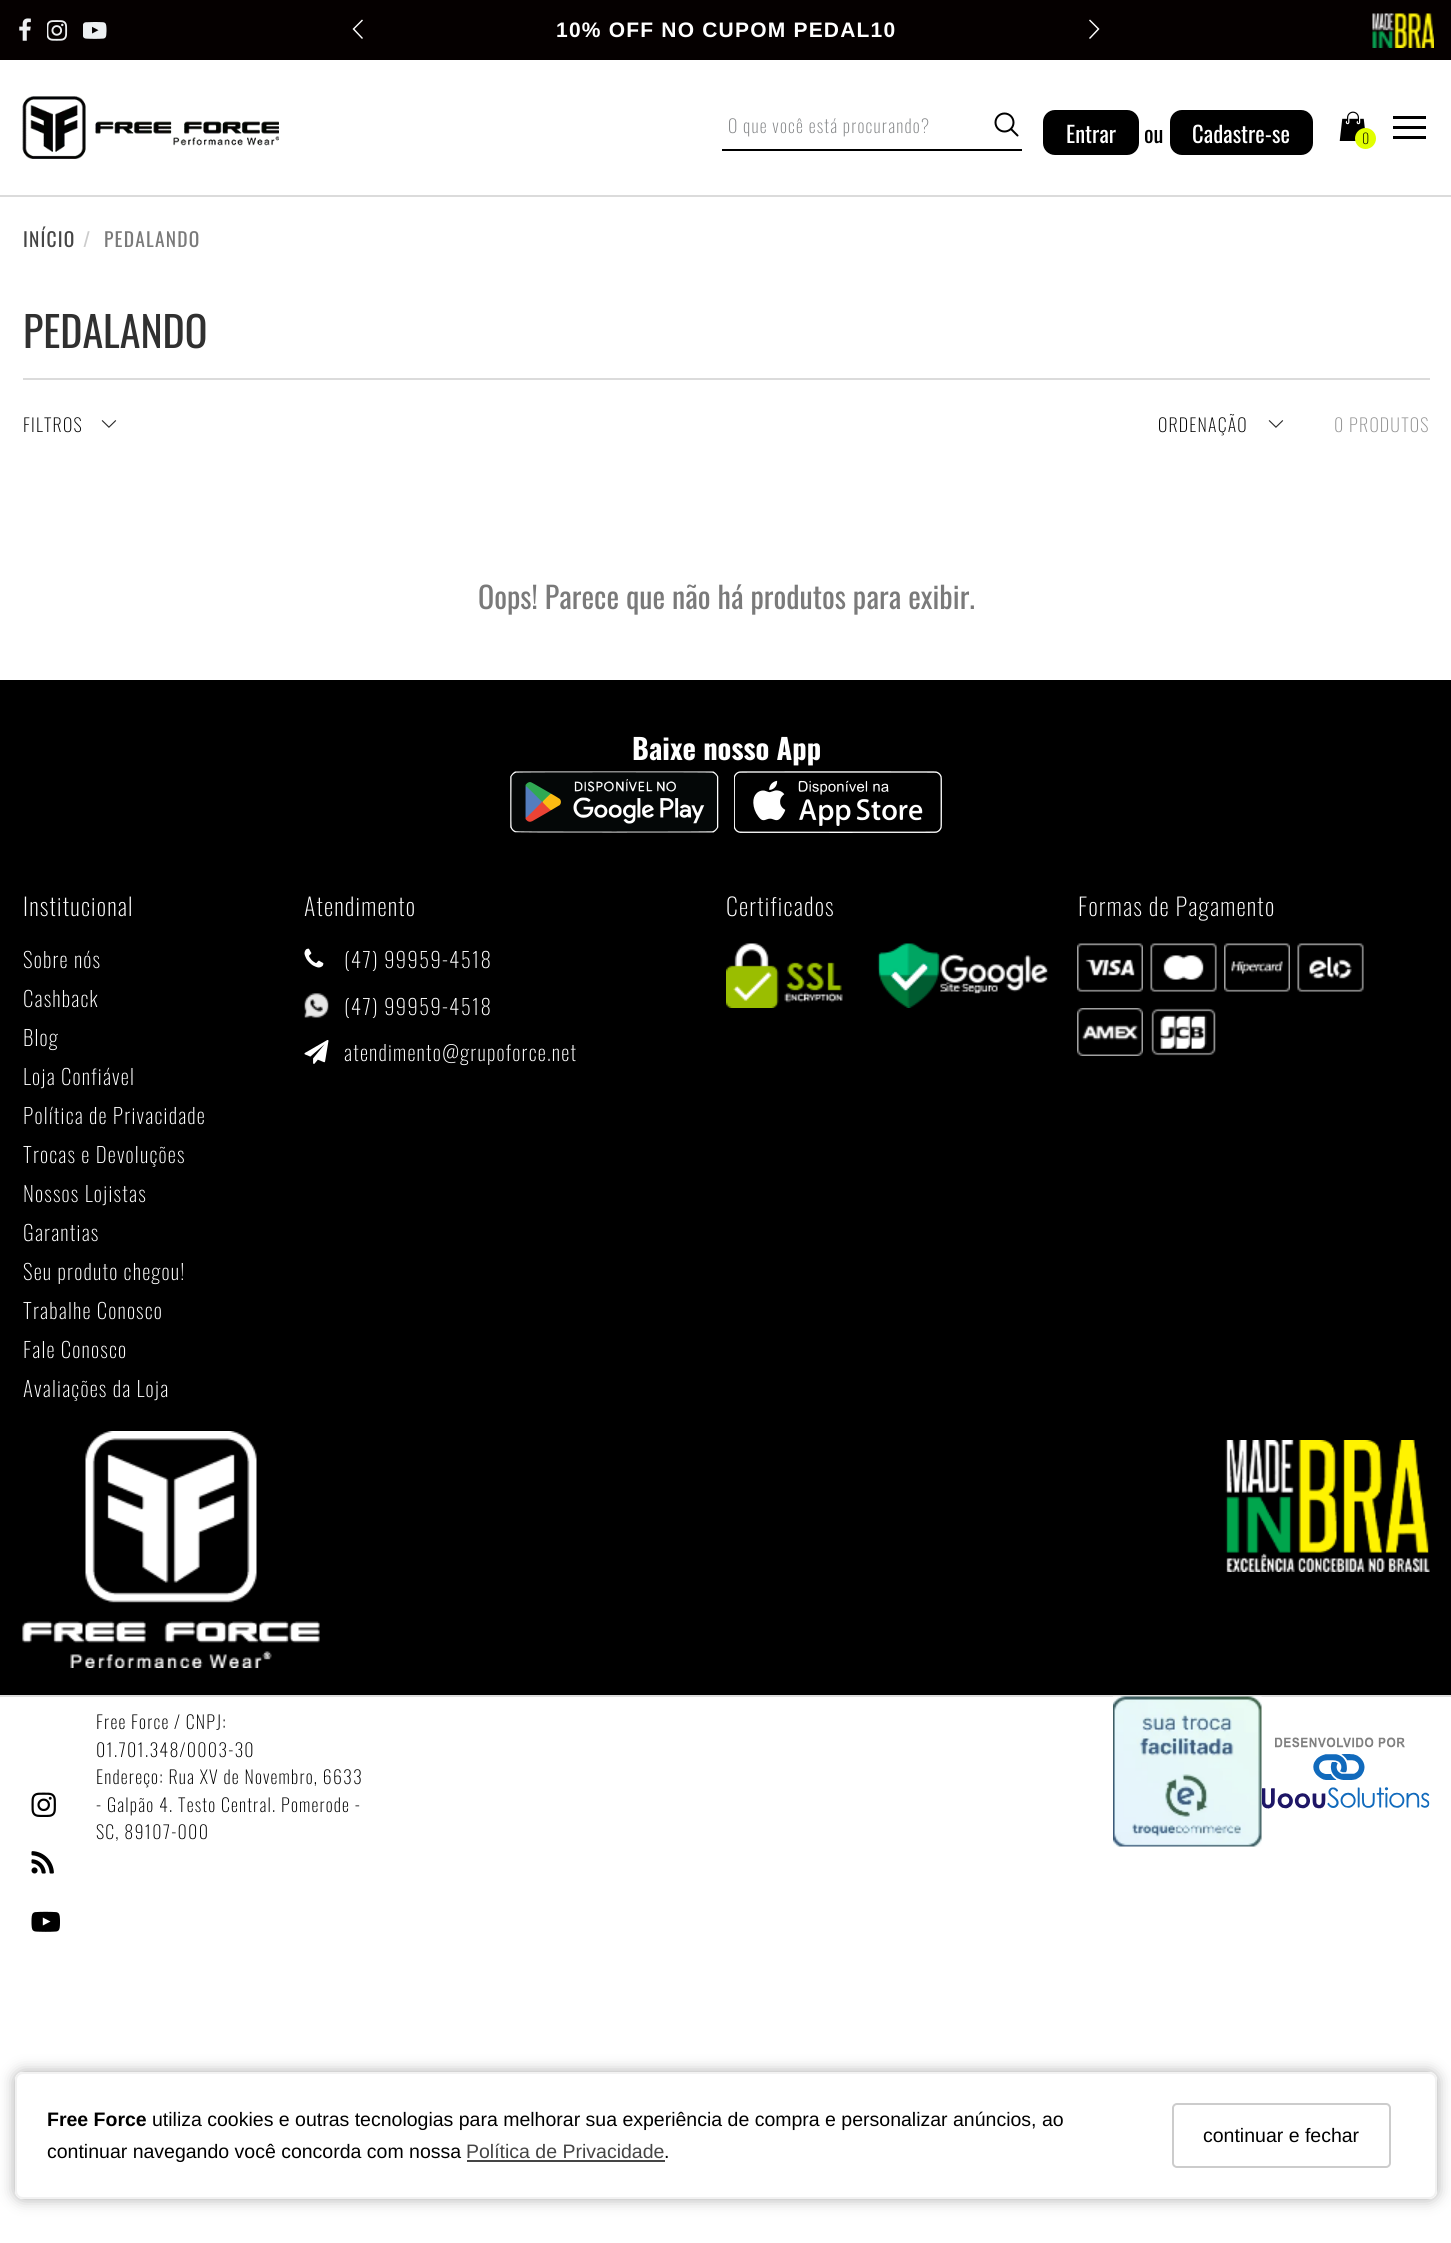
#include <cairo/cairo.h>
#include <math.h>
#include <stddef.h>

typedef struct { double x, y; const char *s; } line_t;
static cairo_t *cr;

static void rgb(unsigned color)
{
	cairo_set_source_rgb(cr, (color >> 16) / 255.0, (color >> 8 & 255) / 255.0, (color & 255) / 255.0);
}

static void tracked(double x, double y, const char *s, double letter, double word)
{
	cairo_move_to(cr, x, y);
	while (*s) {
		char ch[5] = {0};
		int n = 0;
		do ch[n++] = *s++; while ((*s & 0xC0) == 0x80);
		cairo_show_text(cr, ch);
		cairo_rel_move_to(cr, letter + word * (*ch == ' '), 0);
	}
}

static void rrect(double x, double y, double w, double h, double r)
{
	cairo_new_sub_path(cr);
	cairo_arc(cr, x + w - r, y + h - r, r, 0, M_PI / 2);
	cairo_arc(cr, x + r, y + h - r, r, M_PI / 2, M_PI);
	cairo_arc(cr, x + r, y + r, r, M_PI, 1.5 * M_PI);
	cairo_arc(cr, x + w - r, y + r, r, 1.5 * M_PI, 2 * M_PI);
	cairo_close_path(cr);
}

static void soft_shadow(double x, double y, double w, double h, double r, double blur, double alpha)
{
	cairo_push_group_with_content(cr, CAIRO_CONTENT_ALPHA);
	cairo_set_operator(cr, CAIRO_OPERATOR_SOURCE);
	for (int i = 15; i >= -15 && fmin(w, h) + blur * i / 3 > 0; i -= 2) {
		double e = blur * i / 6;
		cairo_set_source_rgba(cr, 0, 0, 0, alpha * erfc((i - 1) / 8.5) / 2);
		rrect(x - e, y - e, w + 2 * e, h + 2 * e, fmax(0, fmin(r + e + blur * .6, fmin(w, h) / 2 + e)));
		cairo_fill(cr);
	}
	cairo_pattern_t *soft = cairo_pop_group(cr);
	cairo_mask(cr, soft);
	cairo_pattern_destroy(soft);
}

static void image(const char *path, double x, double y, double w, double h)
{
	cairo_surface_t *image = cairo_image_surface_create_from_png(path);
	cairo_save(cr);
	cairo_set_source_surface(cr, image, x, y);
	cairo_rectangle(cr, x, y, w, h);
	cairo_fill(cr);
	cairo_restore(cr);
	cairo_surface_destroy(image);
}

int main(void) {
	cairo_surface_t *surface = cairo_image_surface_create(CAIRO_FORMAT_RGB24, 1451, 2243);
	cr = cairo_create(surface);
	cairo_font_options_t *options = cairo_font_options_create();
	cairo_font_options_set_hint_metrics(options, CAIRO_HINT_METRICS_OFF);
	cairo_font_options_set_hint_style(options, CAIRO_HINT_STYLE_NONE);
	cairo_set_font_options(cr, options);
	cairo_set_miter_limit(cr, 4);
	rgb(0xffffff);
	cairo_paint(cr);
	rgb(0xdbdbdb);
	cairo_rectangle(cr, 0, 195, 1451, 2);
	cairo_fill(cr);
	rgb(0x050000);
	cairo_rectangle(cr, 0, 0, 1451, 60);
	cairo_fill(cr);
	image("img/1.png", 19, 18, 12, 23);
	image("img/2.png", 47, 20, 21, 21);
	image("img/3.png", 83, 22, 24, 17);
	rgb(0xffffff);
	cairo_new_path(cr);
	cairo_move_to(cr, 362, 19.5);
	cairo_line_to(cr, 352.5, 29);
	cairo_line_to(cr, 362, 39);
	cairo_line_to(cr, 363, 38);
	cairo_line_to(cr, 354.5, 29);
	cairo_line_to(cr, 363, 20.5);
	cairo_close_path(cr);
	cairo_fill(cr);
	cairo_new_path(cr);
	cairo_move_to(cr, 1090, 19.5);
	cairo_line_to(cr, 1089, 20.5);
	cairo_line_to(cr, 1097.5, 29);
	cairo_line_to(cr, 1089, 38);
	cairo_line_to(cr, 1090, 39);
	cairo_line_to(cr, 1099.5, 29);
	cairo_close_path(cr);
	cairo_fill(cr);
	image("img/4.png", 1372, 13, 62, 35);
	image("img/5.png", 22, 96, 257, 63);
	rgb(0x000000);
	cairo_rectangle(cr, 722, 149, 300, 2);
	cairo_fill(cr);
	image("img/6.png", 994, 112, 25, 25);
	rrect(1043, 110, 96, 45, 12);
	cairo_fill(cr);
	rrect(1170, 110, 143, 45, 12);
	cairo_fill(cr);
	image("img/7.png", 1339, 111, 26, 30);
	rgb(0xe1ff00);
	cairo_arc(cr, 1365.5, 138.5, 10.5, 0, 2 * M_PI);
	cairo_fill(cr);
	rgb(0x000000);
	cairo_new_path(cr);
	cairo_move_to(cr, 1393, 116);
	cairo_line_to(cr, 1393, 119);
	cairo_line_to(cr, 1426, 119);
	cairo_line_to(cr, 1426, 116);
	cairo_close_path(cr);
	cairo_move_to(cr, 1393, 126);
	cairo_line_to(cr, 1393, 129);
	cairo_line_to(cr, 1426, 129);
	cairo_line_to(cr, 1426, 126);
	cairo_close_path(cr);
	cairo_move_to(cr, 1393, 136);
	cairo_line_to(cr, 1393, 139);
	cairo_line_to(cr, 1426, 139);
	cairo_line_to(cr, 1426, 136);
	cairo_close_path(cr);
	cairo_fill(cr);
	rgb(0xdbdbdb);
	cairo_rectangle(cr, 23, 378, 1407, 2);
	cairo_fill(cr);
	image("img/8.png", 101, 420, 16, 8);
	image("img/8.png", 1268, 420, 16, 8);
	rgb(0x000000);
	cairo_rectangle(cr, 0, 680, 1451, 1015);
	cairo_fill(cr);
	image("img/9.png", 510, 771, 209, 62);
	image("img/10.png", 734, 771, 208, 62);
	image("img/11.png", 304, 948, 20, 20);
	image("img/12.png", 304, 993, 25, 25);
	image("img/13.png", 304, 1040, 25, 24);
	image("img/14.png", 726, 943, 117, 65);
	image("img/15.png", 877, 943, 171, 65);
	image("img/16.png", 1077, 943, 66, 49);
	image("img/17.png", 1150, 943, 67, 49);
	image("img/18.png", 1224, 943, 66, 49);
	image("img/19.png", 1297, 943, 67, 49);
	image("img/20.png", 1077, 1008, 66, 48);
	image("img/21.png", 1151, 1008, 65, 48);
	image("img/22.png", 22, 1431, 298, 237);
	image("img/23.png", 1225, 1440, 205, 132);
	rgb(0xdddddd);
	cairo_rectangle(cr, 0, 1695, 1451, 2);
	cairo_fill(cr);
	image("img/24.png", 1113, 1696, 149, 151);
	image("img/25.png", 1262, 1737, 168, 72);
	image("img/26.png", 31, 1792, 25, 25);
	image("img/27.png", 31, 1851, 23, 23);
	image("img/28.png", 31, 1911, 29, 21);
	cairo_save(cr);
	cairo_set_fill_rule(cr, CAIRO_FILL_RULE_EVEN_ODD);
	cairo_new_path(cr);
	cairo_move_to(cr, 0, 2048);
	cairo_line_to(cr, 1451, 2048);
	cairo_line_to(cr, 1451, 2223);
	cairo_line_to(cr, 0, 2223);
	cairo_close_path(cr);
	cairo_move_to(cr, 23, 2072);
	cairo_line_to(cr, 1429, 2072);
	cairo_curve_to(cr, 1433.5, 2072, 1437, 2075.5, 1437, 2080);
	cairo_line_to(cr, 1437, 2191);
	cairo_curve_to(cr, 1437, 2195.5, 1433.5, 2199, 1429, 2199);
	cairo_line_to(cr, 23, 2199);
	cairo_curve_to(cr, 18.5, 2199, 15, 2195.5, 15, 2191);
	cairo_line_to(cr, 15, 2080);
	cairo_curve_to(cr, 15, 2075.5, 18.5, 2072, 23, 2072);
	cairo_close_path(cr);
	cairo_clip(cr);
	rgb(0xaaaaaa);
	soft_shadow(15, 2072, 1422, 127, 8, 7.5, 1);
	cairo_restore(cr);
	cairo_set_source_rgba(cr, 1, 1, 1, 0.98);
	rrect(16, 2073, 1420, 125, 7);
	cairo_fill_preserve(cr);
	rgb(0xf2f2f2);
	cairo_stroke(cr);
	rgb(0x454545);
	cairo_rectangle(cr, 467, 2160, 198, 2);
	cairo_fill(cr);
	rrect(1173, 2104, 217, 63, 4);
	rgb(0xcccccc);
	cairo_stroke(cr);
	cairo_select_font_face(cr, "Liberation Sans", CAIRO_FONT_SLANT_NORMAL, CAIRO_FONT_WEIGHT_BOLD);
	cairo_set_font_size(cr, 21);
	rgb(0xffffff);
	tracked(556, 37, "10% OFF NO CUPOM PEDAL10", 1.2, 0);
	cairo_select_font_face(cr, "Oswald ExtraLight", CAIRO_FONT_SLANT_NORMAL, CAIRO_FONT_WEIGHT_NORMAL);
	cairo_set_font_size(cr, 18);
	rgb(0x848688);
	tracked(728, 133, "O que você está procurando?", 1.2, 0);
	cairo_select_font_face(cr, "Oswald", CAIRO_FONT_SLANT_NORMAL, CAIRO_FONT_WEIGHT_NORMAL);
	cairo_set_font_size(cr, 22.5);
	rgb(0xffffff);
	cairo_move_to(cr, 1066, 143);
	cairo_show_text(cr, "Entrar");
	rgb(0x000000);
	cairo_move_to(cr, 1144, 143);
	cairo_show_text(cr, "ou");
	rgb(0xffffff);
	cairo_move_to(cr, 1192, 143);
	cairo_show_text(cr, "Cadastre-se");
	cairo_select_font_face(cr, "Oswald ExtraLight", CAIRO_FONT_SLANT_NORMAL, CAIRO_FONT_WEIGHT_NORMAL);
	cairo_set_font_size(cr, 14);
	rgb(0x000000);
	cairo_move_to(cr, 1362, 144);
	cairo_show_text(cr, "0");
	cairo_select_font_face(cr, "Oswald", CAIRO_FONT_SLANT_NORMAL, CAIRO_FONT_WEIGHT_NORMAL);
	cairo_set_font_size(cr, 19.5);
	rgb(0x454545);
	tracked(23, 247, "INÍCIO", 1.2, 0);
	rgb(0xcccccc);
	tracked(83, 247, "/", 1.2, 0);
	rgb(0x7a7a7a);
	tracked(104, 247, "PEDALANDO", 1.2, 0);
	cairo_set_font_size(cr, 42);
	rgb(0x303030);
	cairo_move_to(cr, 23, 348);
	cairo_show_text(cr, "PEDALANDO");
	cairo_select_font_face(cr, "Oswald ExtraLight", CAIRO_FONT_SLANT_NORMAL, CAIRO_FONT_WEIGHT_NORMAL);
	cairo_set_font_size(cr, 18);
	rgb(0x000000);
	tracked(23, 432, "FILTROS", 1.2, 0);
	tracked(1158, 432, "ORDENAÇÃO", 1.2, 0);
	rgb(0x939393);
	tracked(1334, 432, "0 PRODUTOS", 1.2, 0);
	cairo_select_font_face(cr, "Oswald", CAIRO_FONT_SLANT_NORMAL, CAIRO_FONT_WEIGHT_NORMAL);
	cairo_set_font_size(cr, 30);
	rgb(0x7a7a7a);
	cairo_move_to(cr, 478, 609);
	cairo_show_text(cr, "Oops! Parece que não há produtos para exibir.");
	cairo_select_font_face(cr, "Oswald", CAIRO_FONT_SLANT_NORMAL, CAIRO_FONT_WEIGHT_BOLD);
	cairo_set_font_size(cr, 28.5);
	rgb(0xffffff);
	cairo_move_to(cr, 632, 760);
	cairo_show_text(cr, "Baixe nosso App");
	cairo_select_font_face(cr, "Oswald ExtraLight", CAIRO_FONT_SLANT_NORMAL, CAIRO_FONT_WEIGHT_NORMAL);
	cairo_set_font_size(cr, 24);
	tracked(23, 916, "Institucional", 1.2, 0);
	cairo_set_font_size(cr, 21);
	{
		static const line_t items[] = {
			{23, 968, "Sobre nós"},
			{23, 1007, "Cashback"},
			{23, 1046, "Blog"},
			{23, 1085, "Loja Confiável"},
			{23, 1124, "Política de Privacidade"},
			{23, 1163, "Trocas e Devoluções"},
			{23, 1202, "Nossos Lojistas"},
			{23, 1241, "Garantias"},
			{23, 1280, "Seu produto chegou!"},
			{23, 1319, "Trabalhe Conosco"},
			{23, 1358, "Fale Conosco"},
			{23, 1397, "Avaliações da Loja"},
		};
		for (size_t i = 0; i < sizeof items / sizeof *items; i++) {
			tracked(items[i].x, items[i].y, items[i].s, 1.2, 0);
		}
	}
	cairo_set_font_size(cr, 24);
	tracked(304, 916, "Atendimento", 1.2, 0);
	cairo_set_font_size(cr, 21);
	{
		static const line_t items[] = {
			{344, 968, "(47) 99959-4518"},
			{344, 1015, "(47) 99959-4518"},
			{344, 1061, "atendimento@grupoforce.net"},
		};
		for (size_t i = 0; i < sizeof items / sizeof *items; i++) {
			tracked(items[i].x, items[i].y, items[i].s, 1.2, 0);
		}
	}
	cairo_set_font_size(cr, 24);
	tracked(726, 916, "Certificados", 1.2, 0);
	tracked(1078, 916, "Formas de Pagamento", 1.2, 0);
	cairo_set_font_size(cr, 18);
	rgb(0x000000);
	{
		static const line_t items[] = {
			{96, 1729, "Free Force / CNPJ:"},
			{96, 1757, "01.701.348/0003-30"},
			{96, 1784, "Endereço: Rua XV de Novembro, 6633"},
			{96, 1812, "- Galpão 4. Testo Central. Pomerode -"},
			{96, 1839, "SC, 89107-000"},
		};
		for (size_t i = 0; i < sizeof items / sizeof *items; i++) {
			tracked(items[i].x, items[i].y, items[i].s, 1.2, 0);
		}
	}
	cairo_select_font_face(cr, "Liberation Sans", CAIRO_FONT_SLANT_NORMAL, CAIRO_FONT_WEIGHT_BOLD);
	cairo_set_font_size(cr, 19.5);
	cairo_move_to(cr, 47, 2126);
	cairo_show_text(cr, "Free Force");
	cairo_select_font_face(cr, "Liberation Sans", CAIRO_FONT_SLANT_NORMAL, CAIRO_FONT_WEIGHT_NORMAL);
	cairo_move_to(cr, 152, 2126);
	cairo_show_text(cr, "utiliza cookies e outras tecnologias para melhorar sua experiência de compra e personalizar anúncios, ao");
	cairo_move_to(cr, 47, 2158);
	cairo_show_text(cr, "continuar navegando você concorda com nossa");
	rgb(0x454545);
	cairo_move_to(cr, 466, 2158);
	cairo_show_text(cr, "Política de Privacidade");
	rgb(0x000000);
	cairo_move_to(cr, 664, 2158);
	cairo_show_text(cr, ".");
	cairo_move_to(cr, 1203, 2142);
	cairo_show_text(cr, "continuar e fechar");
	cairo_surface_write_to_png(surface, "page.png");
	cairo_font_options_destroy(options);
	cairo_destroy(cr);
	cairo_surface_destroy(surface);
	return 0;
}
